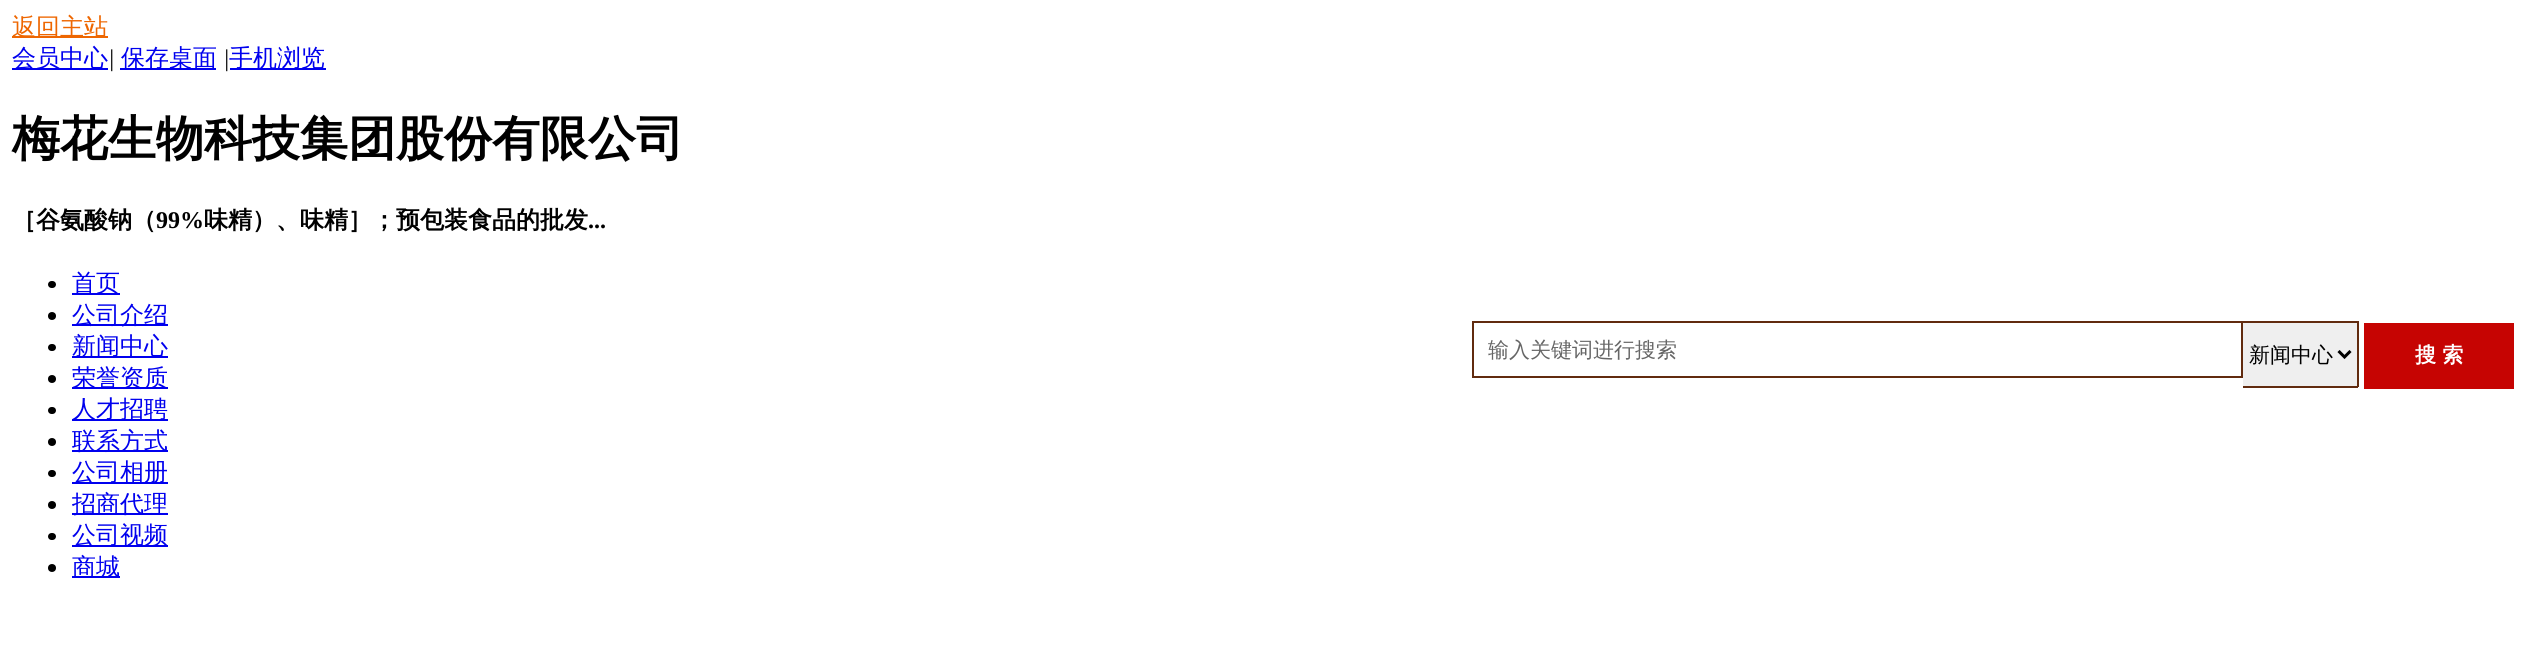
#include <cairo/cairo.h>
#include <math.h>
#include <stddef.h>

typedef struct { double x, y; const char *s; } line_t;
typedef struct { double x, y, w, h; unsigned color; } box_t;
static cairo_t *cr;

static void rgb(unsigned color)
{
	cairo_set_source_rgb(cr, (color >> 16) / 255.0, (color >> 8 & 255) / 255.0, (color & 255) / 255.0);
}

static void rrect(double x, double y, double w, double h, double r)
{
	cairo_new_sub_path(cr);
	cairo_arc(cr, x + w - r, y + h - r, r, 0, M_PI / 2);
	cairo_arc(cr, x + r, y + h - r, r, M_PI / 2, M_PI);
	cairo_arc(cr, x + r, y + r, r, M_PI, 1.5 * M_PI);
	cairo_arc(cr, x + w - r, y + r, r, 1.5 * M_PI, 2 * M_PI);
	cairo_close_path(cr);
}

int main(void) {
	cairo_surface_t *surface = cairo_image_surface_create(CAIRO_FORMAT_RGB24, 2525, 653);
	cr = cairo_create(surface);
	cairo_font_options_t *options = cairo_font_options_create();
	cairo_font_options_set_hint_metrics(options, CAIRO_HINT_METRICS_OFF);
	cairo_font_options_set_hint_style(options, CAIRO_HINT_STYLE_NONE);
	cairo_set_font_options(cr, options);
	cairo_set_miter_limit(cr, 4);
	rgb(0xffffff);
	cairo_paint(cr);
	{
		static const box_t items[] = {
			{12, 36, 96, 2, 0xee6600},
			{12, 68, 96, 2, 0x0000ee},
			{120, 68, 96, 2, 0x0000ee},
			{230, 68, 96, 2, 0x0000ee},
		};
		for (size_t i = 0; i < sizeof items / sizeof *items; i++) {
			rgb(items[i].color);
			cairo_rectangle(cr, items[i].x, items[i].y, items[i].w, items[i].h);
			cairo_fill(cr);
		}
	}
	cairo_rectangle(cr, 1473, 322, 769, 55);
	rgb(0x612b0f);
	cairo_stroke(cr);
	{
		static const box_t items[] = {
			{2243, 323, 114, 63, 0xefefef},
			{2243, 321, 115, 2, 0x612b0f},
			{2357, 321, 2, 66, 0x612b0f},
			{2243, 386, 115, 2, 0x612b0f},
		};
		for (size_t i = 0; i < sizeof items / sizeof *items; i++) {
			rgb(items[i].color);
			cairo_rectangle(cr, items[i].x, items[i].y, items[i].w, items[i].h);
			cairo_fill(cr);
		}
	}
	cairo_new_path(cr);
	cairo_move_to(cr, 2338.5, 351);
	cairo_line_to(cr, 2344.5, 357);
	cairo_line_to(cr, 2350.5, 351);
	rgb(0x000000);
	cairo_set_line_width(cr, 3);
	cairo_stroke(cr);
	rgb(0xc60402);
	cairo_rectangle(cr, 2364, 323, 150, 66);
	cairo_fill(cr);
	rgb(0x000000);
	rrect(48, 281, 8, 7, 3.5);
	cairo_fill(cr);
	rgb(0x0000ee);
	cairo_rectangle(cr, 72, 293, 48, 2);
	cairo_fill(cr);
	rgb(0x000000);
	cairo_arc(cr, 52, 316, 4, 0, 2 * M_PI);
	cairo_fill(cr);
	rgb(0x0000ee);
	cairo_rectangle(cr, 72, 324, 96, 2);
	cairo_fill(cr);
	rgb(0x000000);
	rrect(48, 344, 8, 7, 3.5);
	cairo_fill(cr);
	rgb(0x0000ee);
	cairo_rectangle(cr, 72, 356, 96, 2);
	cairo_fill(cr);
	rgb(0x000000);
	cairo_arc(cr, 52, 379, 4, 0, 2 * M_PI);
	cairo_fill(cr);
	rgb(0x0000ee);
	cairo_rectangle(cr, 72, 387, 96, 2);
	cairo_fill(cr);
	rgb(0x000000);
	rrect(48, 407, 8, 7, 3.5);
	cairo_fill(cr);
	rgb(0x0000ee);
	cairo_rectangle(cr, 72, 419, 96, 2);
	cairo_fill(cr);
	rgb(0x000000);
	cairo_arc(cr, 52, 442, 4, 0, 2 * M_PI);
	cairo_fill(cr);
	rgb(0x0000ee);
	cairo_rectangle(cr, 72, 450, 96, 2);
	cairo_fill(cr);
	rgb(0x000000);
	rrect(48, 470, 8, 7, 3.5);
	cairo_fill(cr);
	rgb(0x0000ee);
	cairo_rectangle(cr, 72, 482, 96, 2);
	cairo_fill(cr);
	rgb(0x000000);
	cairo_arc(cr, 52, 505, 4, 0, 2 * M_PI);
	cairo_fill(cr);
	rgb(0x0000ee);
	cairo_rectangle(cr, 72, 513, 96, 2);
	cairo_fill(cr);
	rgb(0x000000);
	rrect(48, 533, 8, 7, 3.5);
	cairo_fill(cr);
	rgb(0x0000ee);
	cairo_rectangle(cr, 72, 545, 96, 2);
	cairo_fill(cr);
	rgb(0x000000);
	cairo_arc(cr, 52, 568, 4, 0, 2 * M_PI);
	cairo_fill(cr);
	rgb(0x0000ee);
	cairo_rectangle(cr, 72, 576, 48, 2);
	cairo_fill(cr);
	cairo_select_font_face(cr, "WenQuanYi Zen Hei Medium", CAIRO_FONT_SLANT_NORMAL, CAIRO_FONT_WEIGHT_NORMAL);
	cairo_set_font_size(cr, 24);
	rgb(0xee6600);
	cairo_move_to(cr, 12, 35);
	cairo_show_text(cr, "返回主站");
	rgb(0x0000ee);
	cairo_move_to(cr, 12, 66);
	cairo_show_text(cr, "会员中心");
	cairo_select_font_face(cr, "Liberation Serif", CAIRO_FONT_SLANT_ITALIC, CAIRO_FONT_WEIGHT_NORMAL);
	rgb(0x000000);
	cairo_move_to(cr, 108, 66);
	cairo_show_text(cr, "|");
	cairo_select_font_face(cr, "WenQuanYi Zen Hei Medium", CAIRO_FONT_SLANT_NORMAL, CAIRO_FONT_WEIGHT_NORMAL);
	rgb(0x0000ee);
	cairo_move_to(cr, 121, 66);
	cairo_show_text(cr, "保存桌面");
	cairo_select_font_face(cr, "Liberation Serif", CAIRO_FONT_SLANT_ITALIC, CAIRO_FONT_WEIGHT_NORMAL);
	rgb(0x000000);
	cairo_move_to(cr, 223, 66);
	cairo_show_text(cr, "|");
	cairo_select_font_face(cr, "WenQuanYi Zen Hei Medium", CAIRO_FONT_SLANT_NORMAL, CAIRO_FONT_WEIGHT_NORMAL);
	rgb(0x0000ee);
	cairo_move_to(cr, 229, 66);
	cairo_show_text(cr, "手机浏览");
	cairo_select_font_face(cr, "WenQuanYi Zen Hei", CAIRO_FONT_SLANT_NORMAL, CAIRO_FONT_WEIGHT_BOLD);
	cairo_set_font_size(cr, 48);
	rgb(0x000000);
	cairo_move_to(cr, 12, 155);
	cairo_show_text(cr, "梅花生物科技集团股份有限公司");
	cairo_set_font_size(cr, 24);
	cairo_move_to(cr, 12, 228);
	cairo_show_text(cr, "［谷氨酸钠（");
	cairo_select_font_face(cr, "Liberation Serif", CAIRO_FONT_SLANT_NORMAL, CAIRO_FONT_WEIGHT_BOLD);
	cairo_move_to(cr, 156, 228);
	cairo_show_text(cr, "99%");
	cairo_select_font_face(cr, "WenQuanYi Zen Hei", CAIRO_FONT_SLANT_NORMAL, CAIRO_FONT_WEIGHT_BOLD);
	cairo_move_to(cr, 204, 228);
	cairo_show_text(cr, "味精）、味精］；预包装食品的批发");
	cairo_select_font_face(cr, "Liberation Serif", CAIRO_FONT_SLANT_NORMAL, CAIRO_FONT_WEIGHT_BOLD);
	cairo_move_to(cr, 588, 228);
	cairo_show_text(cr, "...");
	cairo_select_font_face(cr, "WenQuanYi Zen Hei Medium", CAIRO_FONT_SLANT_NORMAL, CAIRO_FONT_WEIGHT_NORMAL);
	cairo_set_font_size(cr, 21);
	rgb(0x666666);
	cairo_move_to(cr, 1488, 357);
	cairo_show_text(cr, "输入关键词进行搜索");
	rgb(0x000000);
	cairo_move_to(cr, 2249, 362);
	cairo_show_text(cr, "新闻中心");
	cairo_select_font_face(cr, "WenQuanYi Zen Hei", CAIRO_FONT_SLANT_NORMAL, CAIRO_FONT_WEIGHT_BOLD);
	rgb(0xffffff);
	cairo_move_to(cr, 2415, 362);
	cairo_show_text(cr, "搜 索");
	cairo_select_font_face(cr, "WenQuanYi Zen Hei Medium", CAIRO_FONT_SLANT_NORMAL, CAIRO_FONT_WEIGHT_NORMAL);
	cairo_set_font_size(cr, 24);
	rgb(0x0000ee);
	{
		static const line_t items[] = {
			{72, 291, "首页"},
			{72, 323, "公司介绍"},
			{72, 354, "新闻中心"},
			{72, 386, "荣誉资质"},
			{72, 417, "人才招聘"},
			{72, 449, "联系方式"},
			{72, 480, "公司相册"},
			{72, 512, "招商代理"},
			{72, 543, "公司视频"},
			{72, 575, "商城"},
		};
		for (size_t i = 0; i < sizeof items / sizeof *items; i++) {
			cairo_move_to(cr, items[i].x, items[i].y);
			cairo_show_text(cr, items[i].s);
		}
	}
	cairo_surface_write_to_png(surface, "page.png");
	cairo_font_options_destroy(options);
	cairo_destroy(cr);
	cairo_surface_destroy(surface);
	return 0;
}
